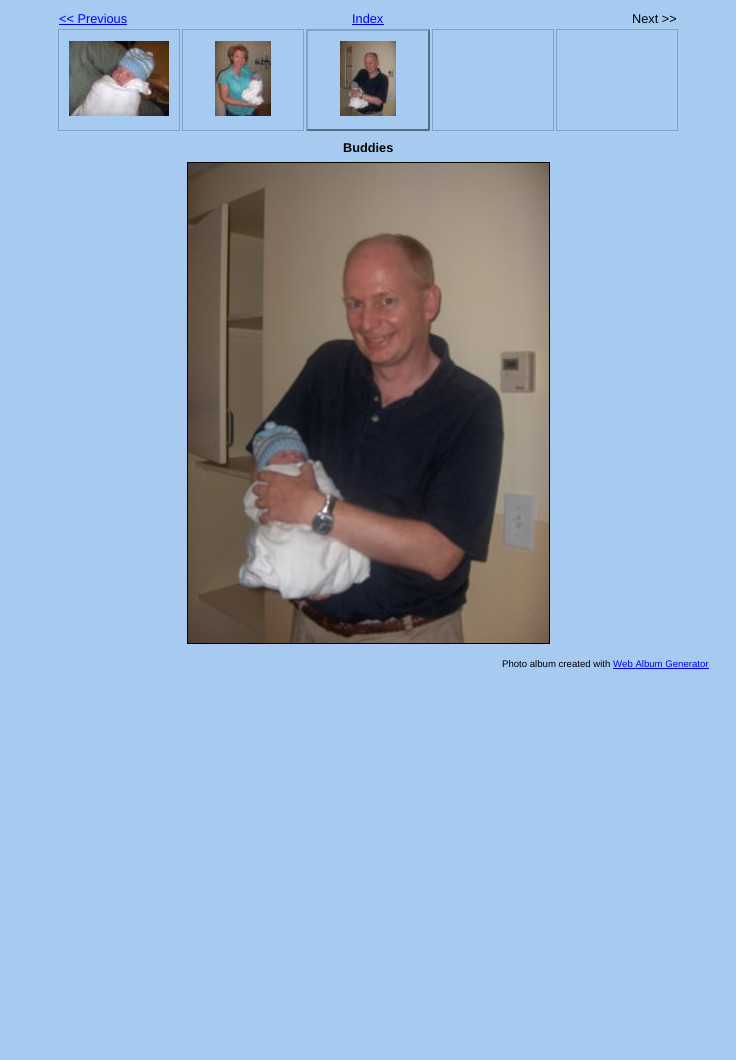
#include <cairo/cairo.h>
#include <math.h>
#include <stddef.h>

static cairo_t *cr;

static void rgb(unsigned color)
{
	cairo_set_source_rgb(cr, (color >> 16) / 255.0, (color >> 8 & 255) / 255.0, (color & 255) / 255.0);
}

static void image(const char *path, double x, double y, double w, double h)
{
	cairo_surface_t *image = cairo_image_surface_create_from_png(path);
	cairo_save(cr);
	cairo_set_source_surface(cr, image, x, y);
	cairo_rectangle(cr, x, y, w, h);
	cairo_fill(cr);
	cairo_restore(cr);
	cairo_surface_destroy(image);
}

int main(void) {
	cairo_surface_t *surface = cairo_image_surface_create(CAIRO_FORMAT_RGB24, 736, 1060);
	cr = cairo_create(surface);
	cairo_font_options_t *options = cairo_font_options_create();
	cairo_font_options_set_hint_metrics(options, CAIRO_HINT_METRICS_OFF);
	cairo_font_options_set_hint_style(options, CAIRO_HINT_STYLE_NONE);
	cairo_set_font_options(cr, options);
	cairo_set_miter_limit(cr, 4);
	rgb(0xa6caf0);
	cairo_paint(cr);
	rgb(0x0000ff);
	cairo_rectangle(cr, 59, 24, 68, 1);
	cairo_fill(cr);
	cairo_rectangle(cr, 352, 24, 32, 1);
	cairo_fill(cr);
	cairo_rectangle(cr, 58.5, 29.5, 121, 101);
	rgb(0x7ea2c8);
	cairo_set_line_width(cr, 1);
	cairo_stroke(cr);
	image("img/1.png", 69, 41, 100, 75);
	cairo_rectangle(cr, 182.5, 29.5, 121, 101);
	cairo_stroke(cr);
	image("img/2.png", 215, 41, 56, 75);
	cairo_new_path(cr);
	cairo_move_to(cr, 306, 29);
	cairo_line_to(cr, 430, 29);
	cairo_line_to(cr, 428, 31);
	cairo_line_to(cr, 308, 31);
	cairo_close_path(cr);
	cairo_fill(cr);
	rgb(0x546c85);
	cairo_new_path(cr);
	cairo_move_to(cr, 430, 29);
	cairo_line_to(cr, 430, 131);
	cairo_line_to(cr, 428, 129);
	cairo_line_to(cr, 428, 31);
	cairo_close_path(cr);
	cairo_fill(cr);
	cairo_new_path(cr);
	cairo_move_to(cr, 430, 131);
	cairo_line_to(cr, 306, 131);
	cairo_line_to(cr, 308, 129);
	cairo_line_to(cr, 428, 129);
	cairo_close_path(cr);
	cairo_fill(cr);
	rgb(0x7ea2c8);
	cairo_new_path(cr);
	cairo_move_to(cr, 306, 131);
	cairo_line_to(cr, 306, 29);
	cairo_line_to(cr, 308, 31);
	cairo_line_to(cr, 308, 129);
	cairo_close_path(cr);
	cairo_fill(cr);
	image("img/3.png", 340, 41, 56, 75);
	cairo_rectangle(cr, 432.5, 29.5, 121, 101);
	cairo_stroke(cr);
	cairo_rectangle(cr, 556.5, 29.5, 121, 101);
	cairo_stroke(cr);
	cairo_rectangle(cr, 187.5, 162.5, 362, 481);
	rgb(0x000000);
	cairo_stroke(cr);
	image("img/4.png", 188, 163, 361, 480);
	rgb(0x0000ff);
	cairo_rectangle(cr, 613, 668, 96, 1);
	cairo_fill(cr);
	cairo_select_font_face(cr, "Liberation Sans", CAIRO_FONT_SLANT_NORMAL, CAIRO_FONT_WEIGHT_NORMAL);
	cairo_set_font_size(cr, 12.75);
	cairo_move_to(cr, 59, 23);
	cairo_show_text(cr, "<< Previous");
	cairo_move_to(cr, 352, 23);
	cairo_show_text(cr, "Index");
	rgb(0x000000);
	cairo_move_to(cr, 632, 23);
	cairo_show_text(cr, "Next >>");
	cairo_select_font_face(cr, "Liberation Sans", CAIRO_FONT_SLANT_NORMAL, CAIRO_FONT_WEIGHT_BOLD);
	cairo_move_to(cr, 343, 152);
	cairo_show_text(cr, "Buddies");
	cairo_select_font_face(cr, "Liberation Sans", CAIRO_FONT_SLANT_NORMAL, CAIRO_FONT_WEIGHT_NORMAL);
	cairo_set_font_size(cr, 9.6);
	cairo_move_to(cr, 502, 667);
	cairo_show_text(cr, "Photo album created with");
	rgb(0x0000ff);
	cairo_move_to(cr, 613, 667);
	cairo_show_text(cr, "Web Album Generator");
	cairo_surface_write_to_png(surface, "page.png");
	cairo_font_options_destroy(options);
	cairo_destroy(cr);
	cairo_surface_destroy(surface);
	return 0;
}
